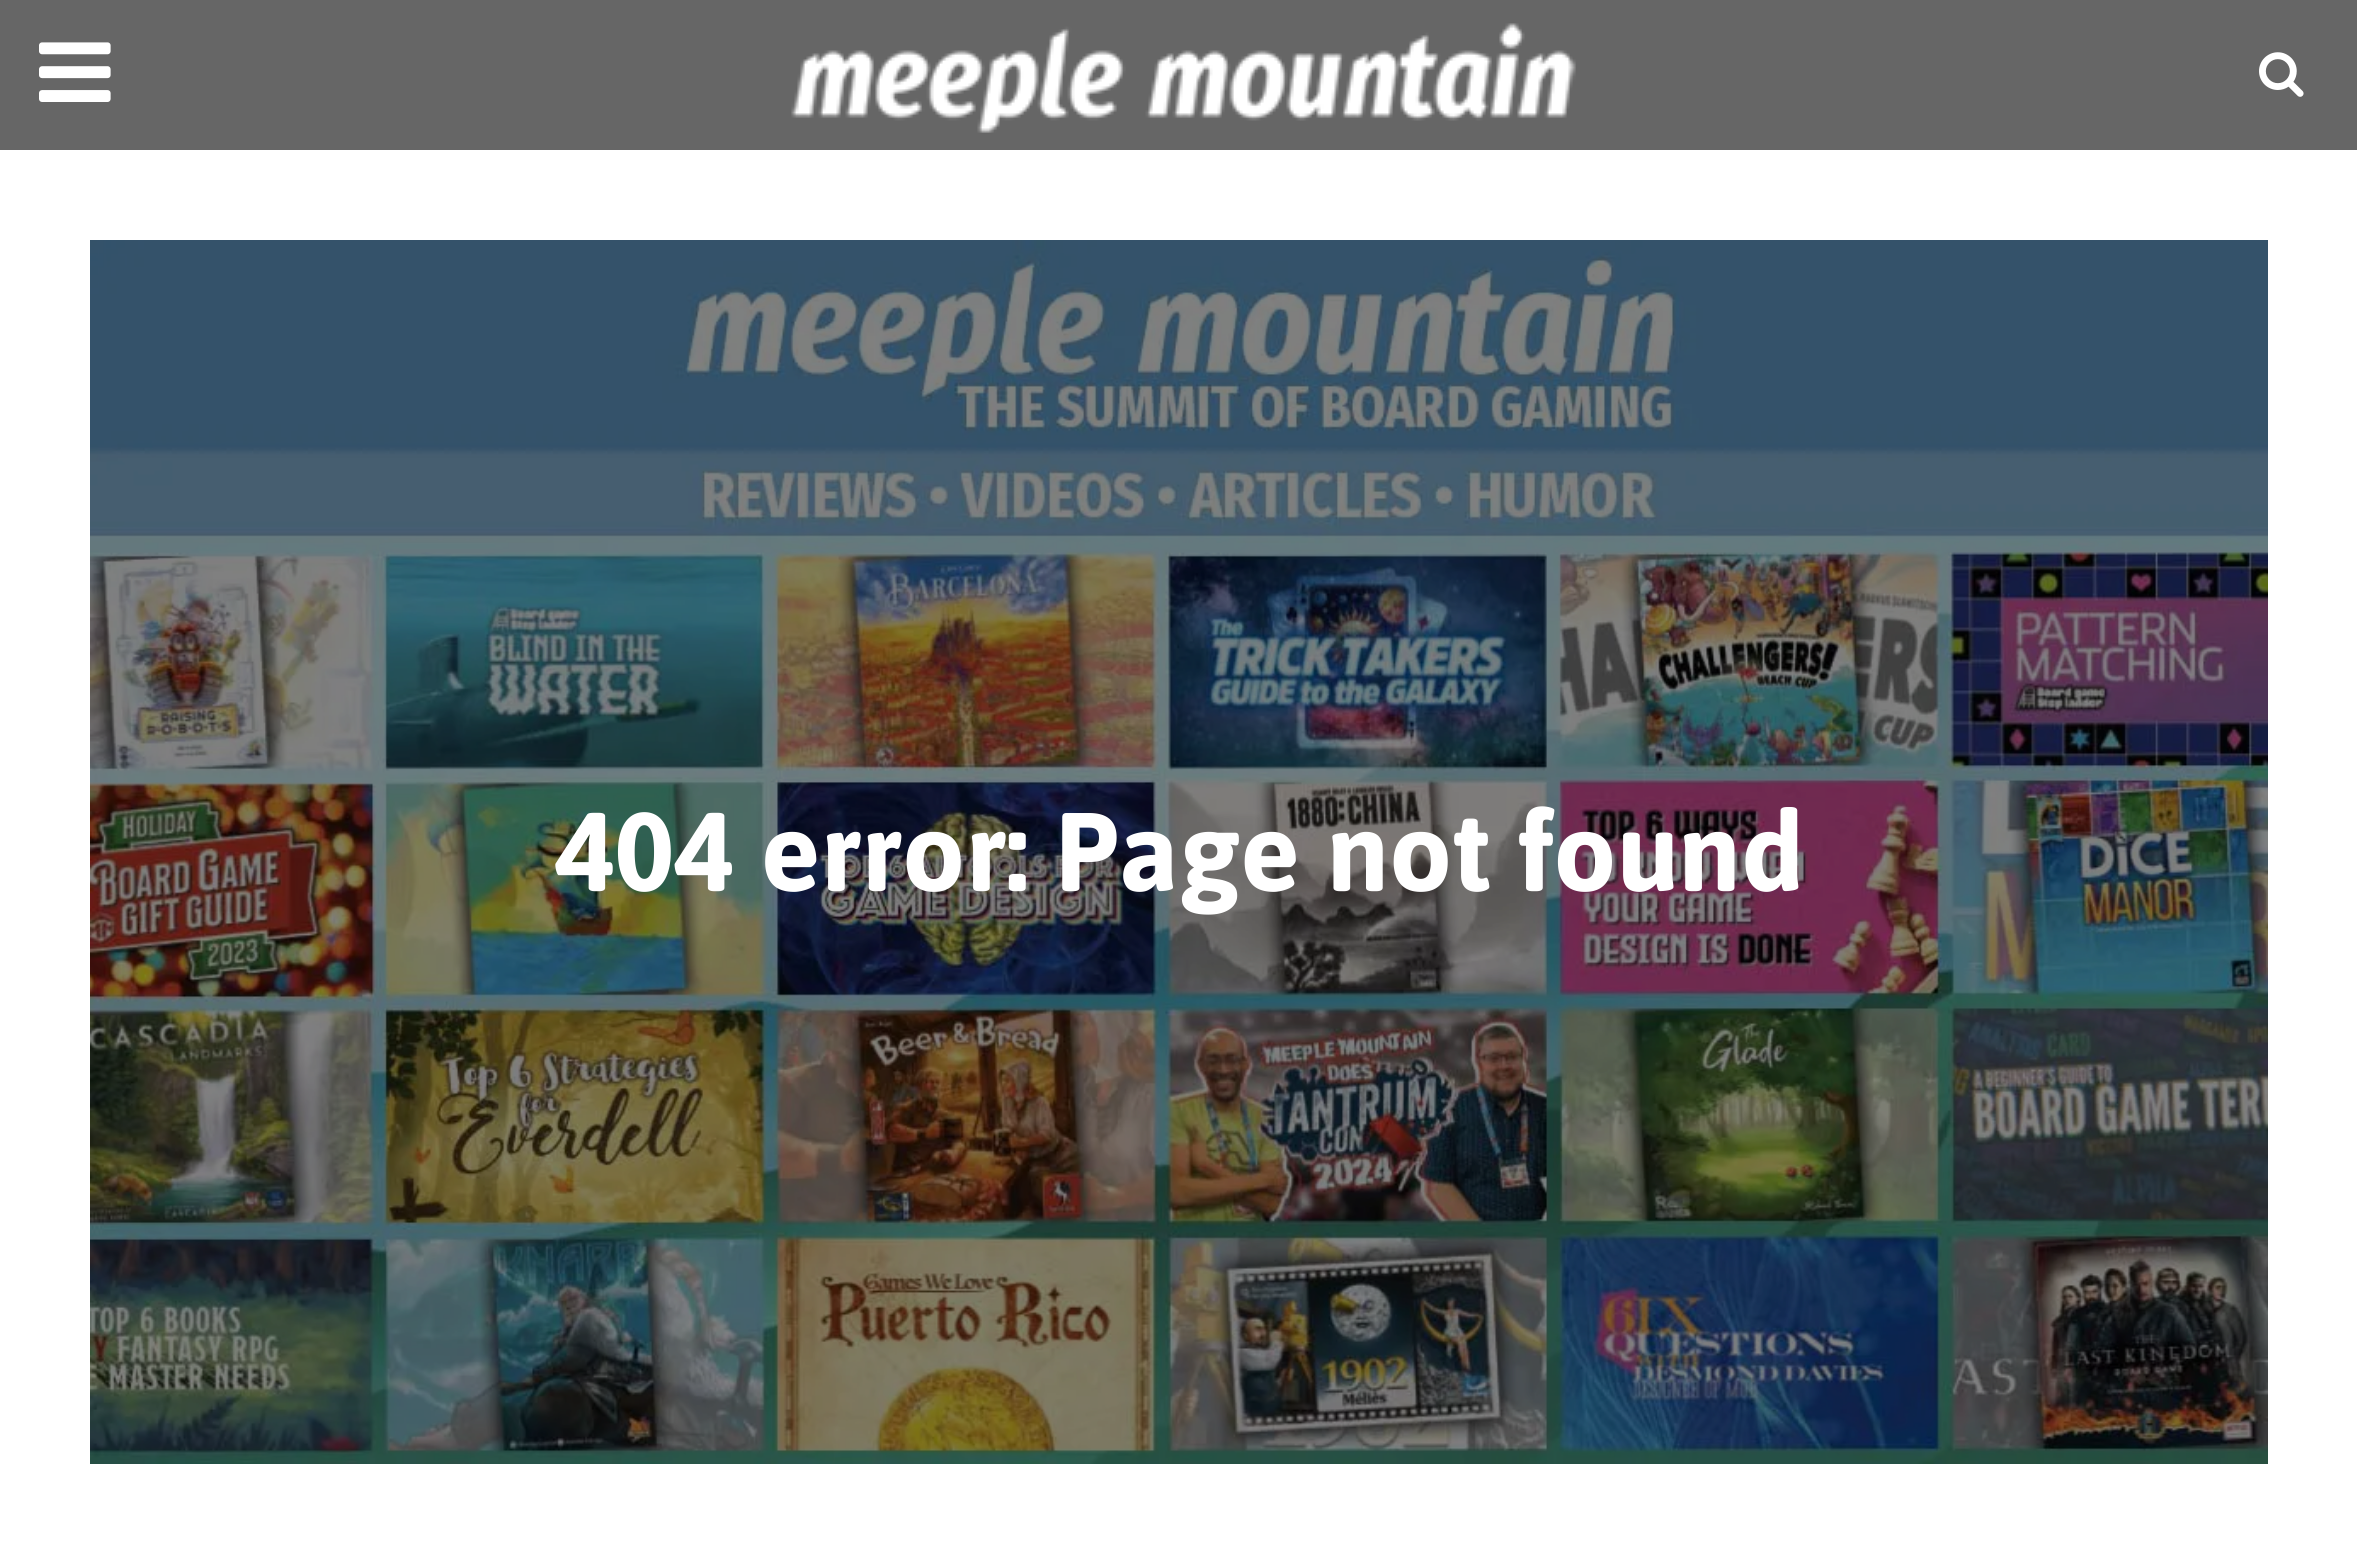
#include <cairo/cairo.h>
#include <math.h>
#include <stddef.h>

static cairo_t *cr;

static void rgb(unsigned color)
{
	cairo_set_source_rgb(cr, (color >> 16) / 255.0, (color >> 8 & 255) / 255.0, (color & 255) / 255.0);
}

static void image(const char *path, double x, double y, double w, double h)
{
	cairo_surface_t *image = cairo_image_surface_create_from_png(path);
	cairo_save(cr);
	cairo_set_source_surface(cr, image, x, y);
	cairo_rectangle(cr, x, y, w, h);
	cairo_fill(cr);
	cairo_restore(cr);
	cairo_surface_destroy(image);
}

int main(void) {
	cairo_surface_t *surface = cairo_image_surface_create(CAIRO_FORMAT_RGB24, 2357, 1565);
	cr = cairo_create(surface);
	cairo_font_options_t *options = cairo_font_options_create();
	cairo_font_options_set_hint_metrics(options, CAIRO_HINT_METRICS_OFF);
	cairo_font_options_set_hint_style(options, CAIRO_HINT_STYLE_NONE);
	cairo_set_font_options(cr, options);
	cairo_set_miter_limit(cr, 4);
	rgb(0xffffff);
	cairo_paint(cr);
	rgb(0x666666);
	cairo_rectangle(cr, 0, 0, 2357, 150);
	cairo_fill(cr);
	image("img/1.png", 39, 42, 72, 60);
	image("img/2.png", 791, 23, 785, 110);
	image("img/3.png", 2259, 52, 45, 45);
	image("img/4.png", 90, 240, 2178, 1224);
	cairo_select_font_face(cr, "Asap", CAIRO_FONT_SLANT_NORMAL, CAIRO_FONT_WEIGHT_BOLD);
	cairo_set_font_size(cr, 111.4);
	rgb(0xffffff);
	cairo_move_to(cr, 555, 891);
	cairo_show_text(cr, "404 error: Page not found");
	cairo_surface_write_to_png(surface, "page.png");
	cairo_font_options_destroy(options);
	cairo_destroy(cr);
	cairo_surface_destroy(surface);
	return 0;
}
